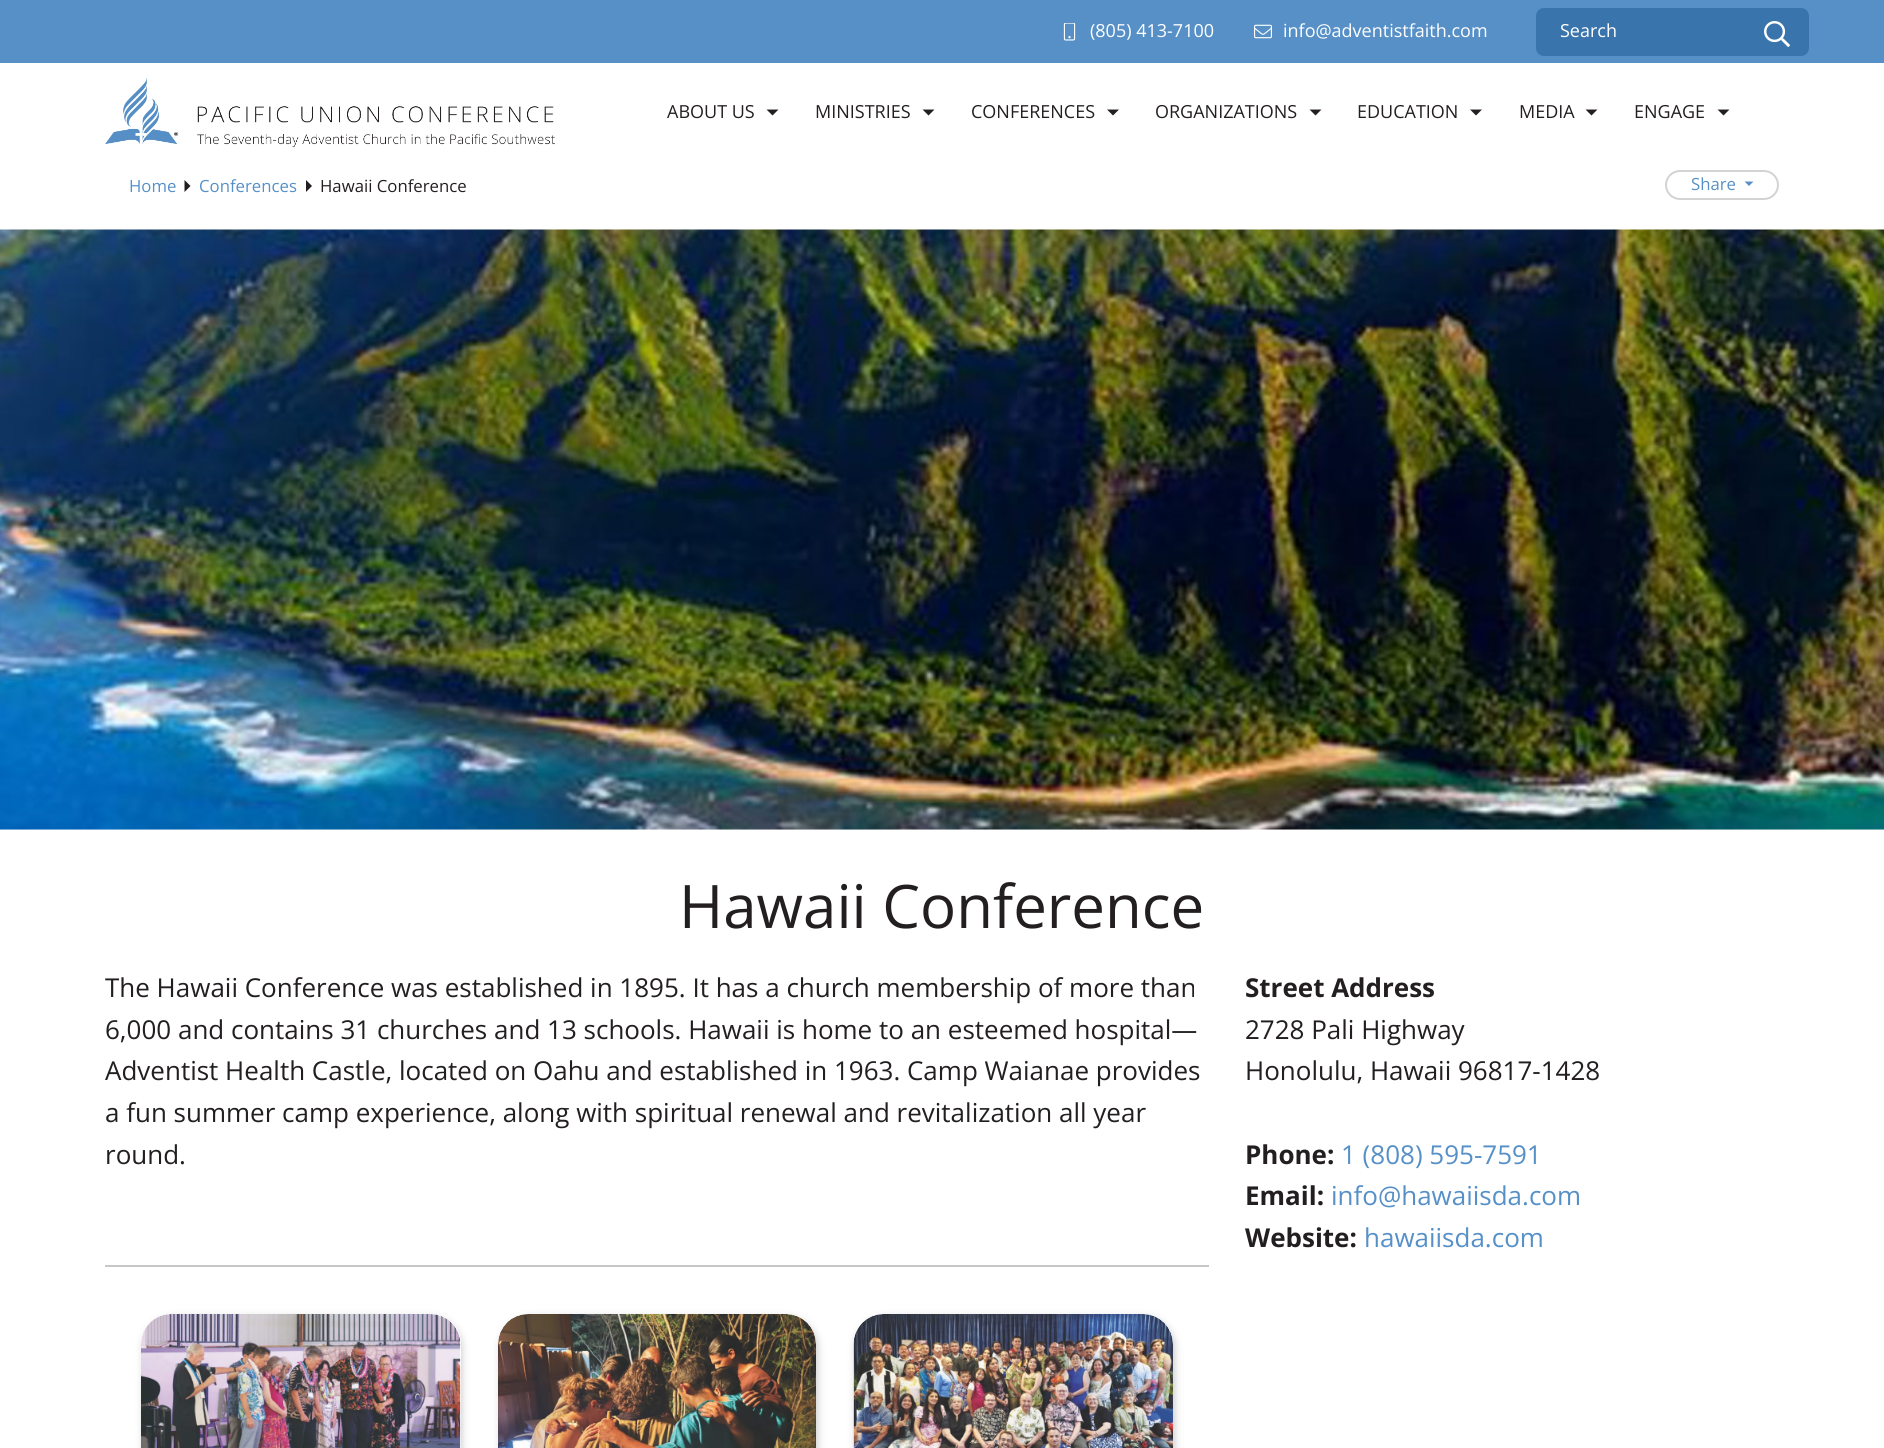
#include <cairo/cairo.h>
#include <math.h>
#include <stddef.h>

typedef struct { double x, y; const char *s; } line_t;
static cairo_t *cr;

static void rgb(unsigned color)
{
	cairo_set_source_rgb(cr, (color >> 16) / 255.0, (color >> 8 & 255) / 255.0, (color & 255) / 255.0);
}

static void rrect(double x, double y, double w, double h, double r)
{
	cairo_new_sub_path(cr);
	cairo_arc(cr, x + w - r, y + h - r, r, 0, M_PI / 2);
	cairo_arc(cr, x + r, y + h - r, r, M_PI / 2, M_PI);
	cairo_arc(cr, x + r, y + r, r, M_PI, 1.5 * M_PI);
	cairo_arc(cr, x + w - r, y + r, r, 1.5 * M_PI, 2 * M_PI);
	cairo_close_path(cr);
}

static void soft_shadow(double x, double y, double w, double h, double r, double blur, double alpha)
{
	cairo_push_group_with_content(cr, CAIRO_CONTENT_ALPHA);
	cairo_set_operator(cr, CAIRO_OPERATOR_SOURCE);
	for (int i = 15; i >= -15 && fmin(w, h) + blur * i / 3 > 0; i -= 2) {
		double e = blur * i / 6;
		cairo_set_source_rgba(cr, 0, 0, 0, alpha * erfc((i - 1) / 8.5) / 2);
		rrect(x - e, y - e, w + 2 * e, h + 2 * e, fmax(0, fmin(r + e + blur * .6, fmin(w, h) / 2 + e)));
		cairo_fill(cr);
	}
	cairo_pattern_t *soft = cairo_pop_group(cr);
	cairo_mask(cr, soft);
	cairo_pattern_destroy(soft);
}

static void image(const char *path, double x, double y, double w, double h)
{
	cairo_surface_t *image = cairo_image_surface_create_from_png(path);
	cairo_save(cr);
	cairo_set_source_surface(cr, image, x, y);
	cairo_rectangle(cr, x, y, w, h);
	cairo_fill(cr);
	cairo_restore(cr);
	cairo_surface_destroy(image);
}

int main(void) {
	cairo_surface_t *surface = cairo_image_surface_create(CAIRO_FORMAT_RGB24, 1884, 1448);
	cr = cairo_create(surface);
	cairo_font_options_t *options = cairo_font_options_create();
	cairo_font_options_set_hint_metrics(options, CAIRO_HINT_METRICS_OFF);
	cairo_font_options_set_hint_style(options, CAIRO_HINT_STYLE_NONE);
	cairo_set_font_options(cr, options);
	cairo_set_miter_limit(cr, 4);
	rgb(0xf5f5f5);
	cairo_paint(cr);
	rgb(0x5690c7);
	cairo_rectangle(cr, 0, 0, 1884, 63);
	cairo_fill(cr);
	image("img/1.png", 1063, 23, 13, 18);
	image("img/2.png", 1254, 24, 18, 15);
	rgb(0x3975ac);
	rrect(1536, 8, 273, 48, 8);
	cairo_fill(cr);
	image("img/3.png", 1764, 21, 26, 26);
	rgb(0xffffff);
	cairo_rectangle(cr, 0, 63, 1884, 167);
	cairo_fill(cr);
	image("img/4.png", 105, 78, 450, 69);
	rgb(0x231f20);
	cairo_new_path(cr);
	cairo_move_to(cr, 766.5, 109.5);
	cairo_line_to(cr, 778.5, 109.5);
	cairo_line_to(cr, 772.5, 115.5);
	cairo_close_path(cr);
	cairo_fill(cr);
	cairo_new_path(cr);
	cairo_move_to(cr, 922.5, 109.5);
	cairo_line_to(cr, 934.5, 109.5);
	cairo_line_to(cr, 928.5, 115.5);
	cairo_close_path(cr);
	cairo_fill(cr);
	cairo_new_path(cr);
	cairo_move_to(cr, 1107, 109.5);
	cairo_line_to(cr, 1119, 109.5);
	cairo_line_to(cr, 1113, 115.5);
	cairo_close_path(cr);
	cairo_fill(cr);
	cairo_new_path(cr);
	cairo_move_to(cr, 1309.5, 109.5);
	cairo_line_to(cr, 1321.5, 109.5);
	cairo_line_to(cr, 1315.5, 115.5);
	cairo_close_path(cr);
	cairo_fill(cr);
	cairo_new_path(cr);
	cairo_move_to(cr, 1470, 109.5);
	cairo_line_to(cr, 1482, 109.5);
	cairo_line_to(cr, 1476, 115.5);
	cairo_close_path(cr);
	cairo_fill(cr);
	cairo_new_path(cr);
	cairo_move_to(cr, 1585.5, 109.5);
	cairo_line_to(cr, 1597.5, 109.5);
	cairo_line_to(cr, 1591.5, 115.5);
	cairo_close_path(cr);
	cairo_fill(cr);
	cairo_new_path(cr);
	cairo_move_to(cr, 1717.5, 109.5);
	cairo_line_to(cr, 1729.5, 109.5);
	cairo_line_to(cr, 1723.5, 115.5);
	cairo_close_path(cr);
	cairo_fill(cr);
	cairo_new_path(cr);
	cairo_move_to(cr, 184.5, 192);
	cairo_line_to(cr, 184.5, 180);
	cairo_line_to(cr, 190.5, 186);
	cairo_close_path(cr);
	cairo_fill(cr);
	cairo_new_path(cr);
	cairo_move_to(cr, 306, 192);
	cairo_line_to(cr, 306, 180);
	cairo_line_to(cr, 312, 186);
	cairo_close_path(cr);
	cairo_fill(cr);
	rrect(1666, 171, 112, 28, 14);
	rgb(0xd1d3d4);
	cairo_stroke(cr);
	rgb(0x5690c7);
	cairo_new_path(cr);
	cairo_move_to(cr, 1744.5, 181.5);
	cairo_line_to(cr, 1753.5, 181.5);
	cairo_line_to(cr, 1749, 186);
	cairo_close_path(cr);
	cairo_fill(cr);
	image("img/5.png", 0, 229, 1884, 601);
	rgb(0xffffff);
	cairo_rectangle(cr, 0, 830, 1884, 618);
	cairo_fill(cr);
	rgb(0xc8c7c7);
	cairo_rectangle(cr, 105, 1265, 1104, 2);
	cairo_fill(cr);
	rgb(0x000000);
	soft_shadow(143, 1317, 319, 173, 30, 4, 0.2);
	rgb(0xffffff);
	rrect(141, 1314, 320, 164, 30);
	cairo_fill(cr);
	image("img/6.png", 141, 1314, 320, 134);
	rgb(0x000000);
	soft_shadow(500, 1317, 318, 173, 30, 4, 0.2);
	rgb(0xffffff);
	rrect(498, 1314, 318, 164, 30);
	cairo_fill(cr);
	image("img/7.png", 498, 1314, 318, 134);
	rgb(0x000000);
	soft_shadow(855, 1317, 320, 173, 30, 4, 0.2);
	rgb(0xffffff);
	rrect(854, 1314, 319, 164, 30);
	cairo_fill(cr);
	image("img/8.png", 853, 1314, 320, 134);
	cairo_select_font_face(cr, "Open Sans", CAIRO_FONT_SLANT_NORMAL, CAIRO_FONT_WEIGHT_NORMAL);
	cairo_set_font_size(cr, 18);
	{
		static const line_t items[] = {
			{1090, 37, "(805) 413-7100"},
			{1283, 37, "info@adventistfaith.com"},
			{1560, 37, "Search"},
		};
		for (size_t i = 0; i < sizeof items / sizeof *items; i++) {
			cairo_move_to(cr, items[i].x, items[i].y);
			cairo_show_text(cr, items[i].s);
		}
	}
	rgb(0x231f20);
	{
		static const line_t items[] = {
			{667, 118, "ABOUT US"},
			{815, 118, "MINISTRIES"},
			{971, 118, "CONFERENCES"},
			{1155, 118, "ORGANIZATIONS"},
			{1357, 118, "EDUCATION"},
			{1519, 118, "MEDIA"},
			{1634, 118, "ENGAGE"},
		};
		for (size_t i = 0; i < sizeof items / sizeof *items; i++) {
			cairo_move_to(cr, items[i].x, items[i].y);
			cairo_show_text(cr, items[i].s);
		}
	}
	cairo_set_font_size(cr, 16.75);
	rgb(0x5690c7);
	cairo_move_to(cr, 129, 192);
	cairo_show_text(cr, "Home");
	cairo_move_to(cr, 199, 192);
	cairo_show_text(cr, "Conferences");
	rgb(0x231f20);
	cairo_move_to(cr, 320, 192);
	cairo_show_text(cr, "Hawaii Conference");
	rgb(0x5690c7);
	cairo_move_to(cr, 1691, 190);
	cairo_show_text(cr, "Share");
	cairo_set_font_size(cr, 60);
	rgb(0x231f20);
	cairo_move_to(cr, 679, 928);
	cairo_show_text(cr, "Hawaii Conference");
	cairo_set_font_size(cr, 26);
	{
		static const line_t items[] = {
			{105, 997, "The Hawaii Conference was established in 1895. It has a church membership of more than"},
			{105, 1039, "6,000 and contains 31 churches and 13 schools. Hawaii is home to an esteemed hospital—"},
			{105, 1080, "Adventist Health Castle, located on Oahu and established in 1963. Camp Waianae provides"},
			{105, 1122, "a fun summer camp experience, along with spiritual renewal and revitalization all year"},
			{105, 1164, "round."},
		};
		for (size_t i = 0; i < sizeof items / sizeof *items; i++) {
			cairo_move_to(cr, items[i].x, items[i].y);
			cairo_show_text(cr, items[i].s);
		}
	}
	cairo_select_font_face(cr, "Open Sans", CAIRO_FONT_SLANT_NORMAL, CAIRO_FONT_WEIGHT_BOLD);
	cairo_move_to(cr, 1245, 997);
	cairo_show_text(cr, "Street Address");
	cairo_select_font_face(cr, "Open Sans", CAIRO_FONT_SLANT_NORMAL, CAIRO_FONT_WEIGHT_NORMAL);
	cairo_move_to(cr, 1245, 1039);
	cairo_show_text(cr, "2728 Pali Highway");
	cairo_move_to(cr, 1245, 1080);
	cairo_show_text(cr, "Honolulu, Hawaii 96817-1428");
	cairo_select_font_face(cr, "Open Sans", CAIRO_FONT_SLANT_NORMAL, CAIRO_FONT_WEIGHT_BOLD);
	cairo_move_to(cr, 1245, 1164);
	cairo_show_text(cr, "Phone:");
	cairo_select_font_face(cr, "Open Sans", CAIRO_FONT_SLANT_NORMAL, CAIRO_FONT_WEIGHT_NORMAL);
	rgb(0x5690c7);
	cairo_move_to(cr, 1341, 1164);
	cairo_show_text(cr, "1 (808) 595-7591");
	cairo_select_font_face(cr, "Open Sans", CAIRO_FONT_SLANT_NORMAL, CAIRO_FONT_WEIGHT_BOLD);
	rgb(0x231f20);
	cairo_move_to(cr, 1245, 1205);
	cairo_show_text(cr, "Email:");
	cairo_select_font_face(cr, "Open Sans", CAIRO_FONT_SLANT_NORMAL, CAIRO_FONT_WEIGHT_NORMAL);
	rgb(0x5690c7);
	cairo_move_to(cr, 1331, 1205);
	cairo_show_text(cr, "info@hawaiisda.com");
	cairo_select_font_face(cr, "Open Sans", CAIRO_FONT_SLANT_NORMAL, CAIRO_FONT_WEIGHT_BOLD);
	rgb(0x231f20);
	cairo_move_to(cr, 1245, 1247);
	cairo_show_text(cr, "Website:");
	cairo_select_font_face(cr, "Open Sans", CAIRO_FONT_SLANT_NORMAL, CAIRO_FONT_WEIGHT_NORMAL);
	rgb(0x5690c7);
	cairo_move_to(cr, 1364, 1247);
	cairo_show_text(cr, "hawaiisda.com");
	cairo_surface_write_to_png(surface, "page.png");
	cairo_font_options_destroy(options);
	cairo_destroy(cr);
	cairo_surface_destroy(surface);
	return 0;
}
